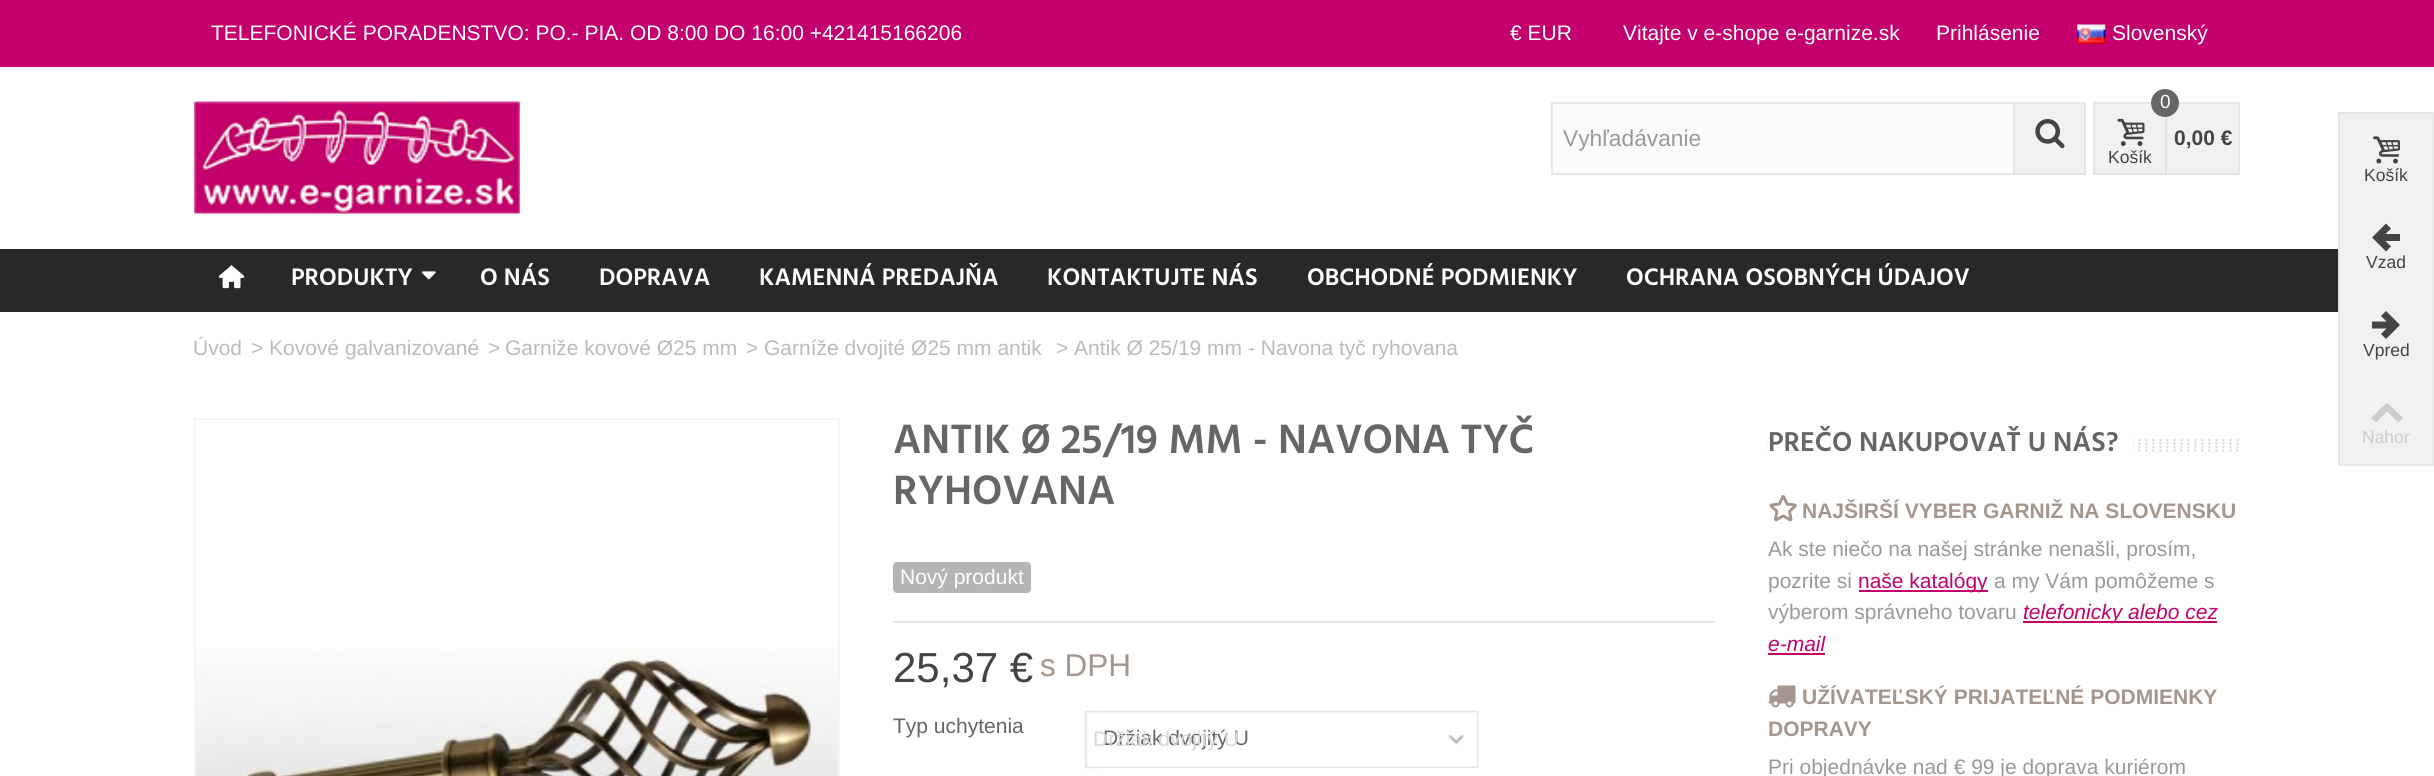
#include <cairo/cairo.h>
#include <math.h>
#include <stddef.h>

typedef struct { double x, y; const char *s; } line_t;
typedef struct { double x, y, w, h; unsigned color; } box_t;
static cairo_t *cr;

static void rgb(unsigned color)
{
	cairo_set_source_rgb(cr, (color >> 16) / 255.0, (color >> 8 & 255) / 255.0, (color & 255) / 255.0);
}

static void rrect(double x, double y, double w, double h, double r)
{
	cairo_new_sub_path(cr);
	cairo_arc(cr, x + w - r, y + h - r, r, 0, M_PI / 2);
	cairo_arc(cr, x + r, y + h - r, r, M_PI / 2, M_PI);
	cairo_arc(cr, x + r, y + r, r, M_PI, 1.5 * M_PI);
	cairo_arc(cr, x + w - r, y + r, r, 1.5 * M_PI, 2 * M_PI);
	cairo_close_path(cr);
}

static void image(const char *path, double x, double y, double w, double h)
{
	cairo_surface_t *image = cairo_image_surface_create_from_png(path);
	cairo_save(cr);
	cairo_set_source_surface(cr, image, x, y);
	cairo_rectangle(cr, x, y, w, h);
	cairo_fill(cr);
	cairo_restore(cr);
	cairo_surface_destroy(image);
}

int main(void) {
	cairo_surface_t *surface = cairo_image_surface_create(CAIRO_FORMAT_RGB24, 2434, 776);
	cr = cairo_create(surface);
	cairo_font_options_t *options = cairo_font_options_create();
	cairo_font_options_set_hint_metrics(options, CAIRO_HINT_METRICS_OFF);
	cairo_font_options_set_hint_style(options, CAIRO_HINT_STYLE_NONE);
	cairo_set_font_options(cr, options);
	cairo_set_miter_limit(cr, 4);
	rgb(0xffffff);
	cairo_paint(cr);
	rgb(0xc3006d);
	cairo_rectangle(cr, 0, 0, 2434, 67);
	cairo_fill(cr);
	image("img/1.png", 2077, 24, 29, 20);
	image("img/2.png", 194, 101, 326, 113);
	{
		static const box_t items[] = {
			{1553, 104, 460, 69, 0xfbfbfb},
			{1551, 102, 462, 2, 0xe5e5e5},
			{1551, 173, 462, 2, 0xe5e5e5},
			{1551, 102, 2, 73, 0xe5e5e5},
		};
		for (size_t i = 0; i < sizeof items / sizeof *items; i++) {
			rgb(items[i].color);
			cairo_rectangle(cr, items[i].x, items[i].y, items[i].w, items[i].h);
			cairo_fill(cr);
		}
	}
	rgb(0xf1f1f1);
	cairo_rectangle(cr, 2014, 103, 71, 71);
	cairo_fill_preserve(cr);
	rgb(0xe5e5e5);
	cairo_stroke(cr);
	image("img/3.png", 2035, 119, 30, 30);
	rgb(0xf1f1f1);
	cairo_rectangle(cr, 2094, 103, 72, 71);
	cairo_fill_preserve(cr);
	rgb(0xe5e5e5);
	cairo_stroke(cr);
	rgb(0xf1f1f1);
	cairo_rectangle(cr, 2167, 104, 71, 69);
	cairo_fill(cr);
	rgb(0xe5e5e5);
	cairo_rectangle(cr, 2178, 102, 62, 2);
	cairo_fill(cr);
	rgb(0x666666);
	cairo_arc(cr, 2165, 103, 14, 0, 2 * M_PI);
	cairo_fill(cr);
	image("img/4.png", 2117, 118, 28, 28);
	{
		static const box_t items[] = {
			{2238, 102, 2, 73, 0xe5e5e5},
			{2167, 173, 73, 2, 0xe5e5e5},
			{0, 249, 2338, 63, 0x282828},
		};
		for (size_t i = 0; i < sizeof items / sizeof *items; i++) {
			rgb(items[i].color);
			cairo_rectangle(cr, items[i].x, items[i].y, items[i].w, items[i].h);
			cairo_fill(cr);
		}
	}
	image("img/5.png", 218, 265, 27, 24);
	image("img/6.png", 421, 271, 15, 9);
	cairo_rectangle(cr, 195, 419, 644, 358);
	rgb(0xf5f5f5);
	cairo_stroke(cr);
	image("img/7.png", 196, 647, 642, 129);
	rgb(0xb5b5b5);
	rrect(893, 562, 138, 31, 4);
	cairo_fill(cr);
	rgb(0xe5e5e5);
	cairo_rectangle(cr, 893, 621, 822, 2);
	cairo_fill(cr);
	image("img/8.png", 1085, 710, 18, 59);
	image("img/9.png", 1102, 710, 377, 58);
	image("img/10.png", 1767, 439, 472, 13);
	rgb(0xffffff);
	cairo_rectangle(cr, 1768, 439, 365, 13);
	cairo_fill(cr);
	image("img/11.png", 1769, 495, 28, 27);
	{
		static const box_t items[] = {
			{1859, 590, 129, 2, 0xc3006d},
			{2023, 621, 100, 2, 0xc3006d},
			{2123, 621, 94, 2, 0xc3006d},
			{1768, 653, 57, 2, 0xc3006d},
		};
		for (size_t i = 0; i < sizeof items / sizeof *items; i++) {
			rgb(items[i].color);
			cairo_rectangle(cr, items[i].x, items[i].y, items[i].w, items[i].h);
			cairo_fill(cr);
		}
	}
	image("img/12.png", 1768, 685, 28, 23);
	{
		static const box_t items[] = {
			{2340, 114, 93, 350, 0xf1f1f1},
			{2338, 112, 96, 2, 0xe5e5e5},
			{2433, 112, 1, 354, 0xe5e5e5},
			{2338, 464, 96, 2, 0xe5e5e5},
			{2338, 114, 2, 350, 0xe5e5e5},
		};
		for (size_t i = 0; i < sizeof items / sizeof *items; i++) {
			rgb(items[i].color);
			cairo_rectangle(cr, items[i].x, items[i].y, items[i].w, items[i].h);
			cairo_fill(cr);
		}
	}
	image("img/13.png", 2373, 136, 27, 28);
	rgb(0x444444);
	cairo_new_path(cr);
	cairo_move_to(cr, 2386, 251.5);
	cairo_line_to(cr, 2372, 237.5);
	cairo_line_to(cr, 2386, 223.5);
	cairo_line_to(cr, 2391, 228.5);
	cairo_line_to(cr, 2385.5, 234);
	cairo_line_to(cr, 2400, 234);
	cairo_line_to(cr, 2400, 241);
	cairo_line_to(cr, 2385.5, 241);
	cairo_line_to(cr, 2391, 246.5);
	cairo_close_path(cr);
	cairo_fill(cr);
	cairo_new_path(cr);
	cairo_move_to(cr, 2386, 311);
	cairo_line_to(cr, 2400, 325);
	cairo_line_to(cr, 2386, 339);
	cairo_line_to(cr, 2381, 334);
	cairo_line_to(cr, 2386.5, 328.5);
	cairo_line_to(cr, 2372, 328.5);
	cairo_line_to(cr, 2372, 321.5);
	cairo_line_to(cr, 2386.5, 321.5);
	cairo_line_to(cr, 2381, 316);
	cairo_close_path(cr);
	cairo_fill(cr);
	rgb(0xcccccc);
	cairo_new_path(cr);
	cairo_move_to(cr, 2371, 418);
	cairo_line_to(cr, 2387, 402.5);
	cairo_line_to(cr, 2403, 418);
	cairo_line_to(cr, 2398, 422.5);
	cairo_line_to(cr, 2387, 411.5);
	cairo_line_to(cr, 2376, 422.5);
	cairo_close_path(cr);
	cairo_fill(cr);
	cairo_select_font_face(cr, "Liberation Sans", CAIRO_FONT_SLANT_NORMAL, CAIRO_FONT_WEIGHT_NORMAL);
	cairo_set_font_size(cr, 21);
	rgb(0xffffff);
	{
		static const line_t items[] = {
			{211, 40, "TELEFONICKÉ PORADENSTVO: PO.- PIA. OD 8:00 DO 16:00 +421415166206"},
			{1510, 40, "€ EUR"},
			{1623, 40, "Vitajte v e-shope e-garnize.sk"},
			{1936, 40, "Prihlásenie"},
			{2112, 40, "Slovenský"},
		};
		for (size_t i = 0; i < sizeof items / sizeof *items; i++) {
			cairo_move_to(cr, items[i].x, items[i].y);
			cairo_show_text(cr, items[i].s);
		}
	}
	cairo_set_font_size(cr, 22.75);
	rgb(0x999999);
	cairo_move_to(cr, 1563, 146);
	cairo_show_text(cr, "Vyhľadávanie");
	cairo_set_font_size(cr, 19);
	rgb(0xffffff);
	cairo_move_to(cr, 2160, 108);
	cairo_show_text(cr, "0");
	cairo_set_font_size(cr, 17.5);
	rgb(0x444444);
	cairo_move_to(cr, 2108, 163);
	cairo_show_text(cr, "Košík");
	cairo_select_font_face(cr, "Liberation Sans", CAIRO_FONT_SLANT_NORMAL, CAIRO_FONT_WEIGHT_BOLD);
	cairo_set_font_size(cr, 21);
	cairo_move_to(cr, 2174, 145);
	cairo_show_text(cr, "0,00 €");
	cairo_select_font_face(cr, "Hind SemiBold", CAIRO_FONT_SLANT_NORMAL, CAIRO_FONT_WEIGHT_NORMAL);
	cairo_set_font_size(cr, 24.5);
	rgb(0xffffff);
	{
		static const line_t items[] = {
			{291, 285, "PRODUKTY"},
			{480, 285, "O NÁS"},
			{599, 285, "DOPRAVA"},
			{759, 285, "KAMENNÁ PREDAJŇA"},
			{1047, 285, "KONTAKTUJTE NÁS"},
			{1307, 285, "OBCHODNÉ PODMIENKY"},
			{1626, 285, "OCHRANA OSOBNÝCH ÚDAJOV"},
		};
		for (size_t i = 0; i < sizeof items / sizeof *items; i++) {
			cairo_move_to(cr, items[i].x, items[i].y);
			cairo_show_text(cr, items[i].s);
		}
	}
	cairo_select_font_face(cr, "Liberation Sans", CAIRO_FONT_SLANT_NORMAL, CAIRO_FONT_WEIGHT_NORMAL);
	cairo_set_font_size(cr, 21);
	rgb(0xbbbbbb);
	{
		static const line_t items[] = {
			{193, 355, "Úvod"},
			{251, 355, ">"},
			{269, 355, "Kovové galvanizované"},
			{488, 355, ">"},
			{505, 355, "Garniže kovové Ø25 mm"},
			{746, 355, ">"},
			{764, 355, "Garníže dvojité Ø25 mm antik"},
			{1056, 355, ">"},
			{1074, 355, "Antik Ø 25/19 mm - Navona tyč ryhovana"},
		};
		for (size_t i = 0; i < sizeof items / sizeof *items; i++) {
			cairo_move_to(cr, items[i].x, items[i].y);
			cairo_show_text(cr, items[i].s);
		}
	}
	cairo_select_font_face(cr, "Hind SemiBold", CAIRO_FONT_SLANT_NORMAL, CAIRO_FONT_WEIGHT_NORMAL);
	cairo_set_font_size(cr, 42);
	rgb(0x666666);
	cairo_move_to(cr, 893, 453);
	cairo_show_text(cr, "ANTIK Ø 25/19 MM - NAVONA TYČ");
	cairo_move_to(cr, 893, 504);
	cairo_show_text(cr, "RYHOVANA");
	cairo_select_font_face(cr, "Liberation Sans", CAIRO_FONT_SLANT_NORMAL, CAIRO_FONT_WEIGHT_NORMAL);
	cairo_set_font_size(cr, 21);
	rgb(0xffffff);
	cairo_move_to(cr, 900, 584);
	cairo_show_text(cr, "Nový produkt");
	cairo_set_font_size(cr, 42);
	rgb(0x444444);
	cairo_move_to(cr, 893, 682);
	cairo_show_text(cr, "25,37 €");
	cairo_set_font_size(cr, 31.5);
	rgb(0xa4968d);
	cairo_move_to(cr, 1040, 676);
	cairo_show_text(cr, "s DPH");
	cairo_set_font_size(cr, 21);
	rgb(0x666666);
	cairo_move_to(cr, 893, 733);
	cairo_show_text(cr, "Typ uchytenia");
	cairo_move_to(cr, 1103, 745);
	cairo_show_text(cr, "Držiak dvojitý U");
	rgb(0xd6d6d6);
	cairo_move_to(cr, 1093, 746);
	cairo_show_text(cr, "Držiak dvojitý U");
	cairo_select_font_face(cr, "Hind SemiBold", CAIRO_FONT_SLANT_NORMAL, CAIRO_FONT_WEIGHT_NORMAL);
	cairo_set_font_size(cr, 28);
	rgb(0x666666);
	cairo_move_to(cr, 1768, 451);
	cairo_show_text(cr, "PREČO NAKUPOVAŤ U NÁS?");
	cairo_select_font_face(cr, "Liberation Sans", CAIRO_FONT_SLANT_NORMAL, CAIRO_FONT_WEIGHT_BOLD);
	cairo_set_font_size(cr, 21);
	rgb(0xa4968d);
	cairo_move_to(cr, 1802, 518);
	cairo_show_text(cr, "NAJŠIRŠÍ VYBER GARNIŽ NA SLOVENSKU");
	cairo_select_font_face(cr, "Liberation Sans", CAIRO_FONT_SLANT_NORMAL, CAIRO_FONT_WEIGHT_NORMAL);
	rgb(0x999999);
	cairo_move_to(cr, 1768, 556);
	cairo_show_text(cr, "Ak ste niečo na našej stránke nenašli, prosím,");
	cairo_move_to(cr, 1768, 588);
	cairo_show_text(cr, "pozrite si");
	rgb(0xc3006d);
	cairo_move_to(cr, 1858, 588);
	cairo_show_text(cr, "naše katalógy");
	rgb(0x999999);
	cairo_move_to(cr, 1994, 588);
	cairo_show_text(cr, "a my Vám pomôžeme s");
	cairo_move_to(cr, 1768, 619);
	cairo_show_text(cr, "výberom správneho tovaru");
	cairo_select_font_face(cr, "Liberation Sans", CAIRO_FONT_SLANT_ITALIC, CAIRO_FONT_WEIGHT_NORMAL);
	rgb(0xc3006d);
	cairo_move_to(cr, 2023, 619);
	cairo_show_text(cr, "telefonicky alebo cez");
	cairo_move_to(cr, 1768, 651);
	cairo_show_text(cr, "e-mail");
	cairo_select_font_face(cr, "Liberation Sans", CAIRO_FONT_SLANT_NORMAL, CAIRO_FONT_WEIGHT_BOLD);
	rgb(0xa4968d);
	cairo_move_to(cr, 1802, 704);
	cairo_show_text(cr, "UŽÍVATEĽSKÝ PRIJATEĽNÉ PODMIENKY");
	cairo_move_to(cr, 1768, 736);
	cairo_show_text(cr, "DOPRAVY");
	cairo_select_font_face(cr, "Liberation Sans", CAIRO_FONT_SLANT_NORMAL, CAIRO_FONT_WEIGHT_NORMAL);
	rgb(0x999999);
	cairo_move_to(cr, 1768, 774);
	cairo_show_text(cr, "Pri objednávke nad € 99 je doprava kuriérom");
	cairo_set_font_size(cr, 17.5);
	rgb(0x444444);
	{
		static const line_t items[] = {
			{2364, 181, "Košík"},
			{2366, 268, "Vzad"},
			{2363, 356, "Vpred"},
		};
		for (size_t i = 0; i < sizeof items / sizeof *items; i++) {
			cairo_move_to(cr, items[i].x, items[i].y);
			cairo_show_text(cr, items[i].s);
		}
	}
	rgb(0xcccccc);
	cairo_move_to(cr, 2362, 443);
	cairo_show_text(cr, "Nahor");
	cairo_surface_write_to_png(surface, "page.png");
	cairo_font_options_destroy(options);
	cairo_destroy(cr);
	cairo_surface_destroy(surface);
	return 0;
}
